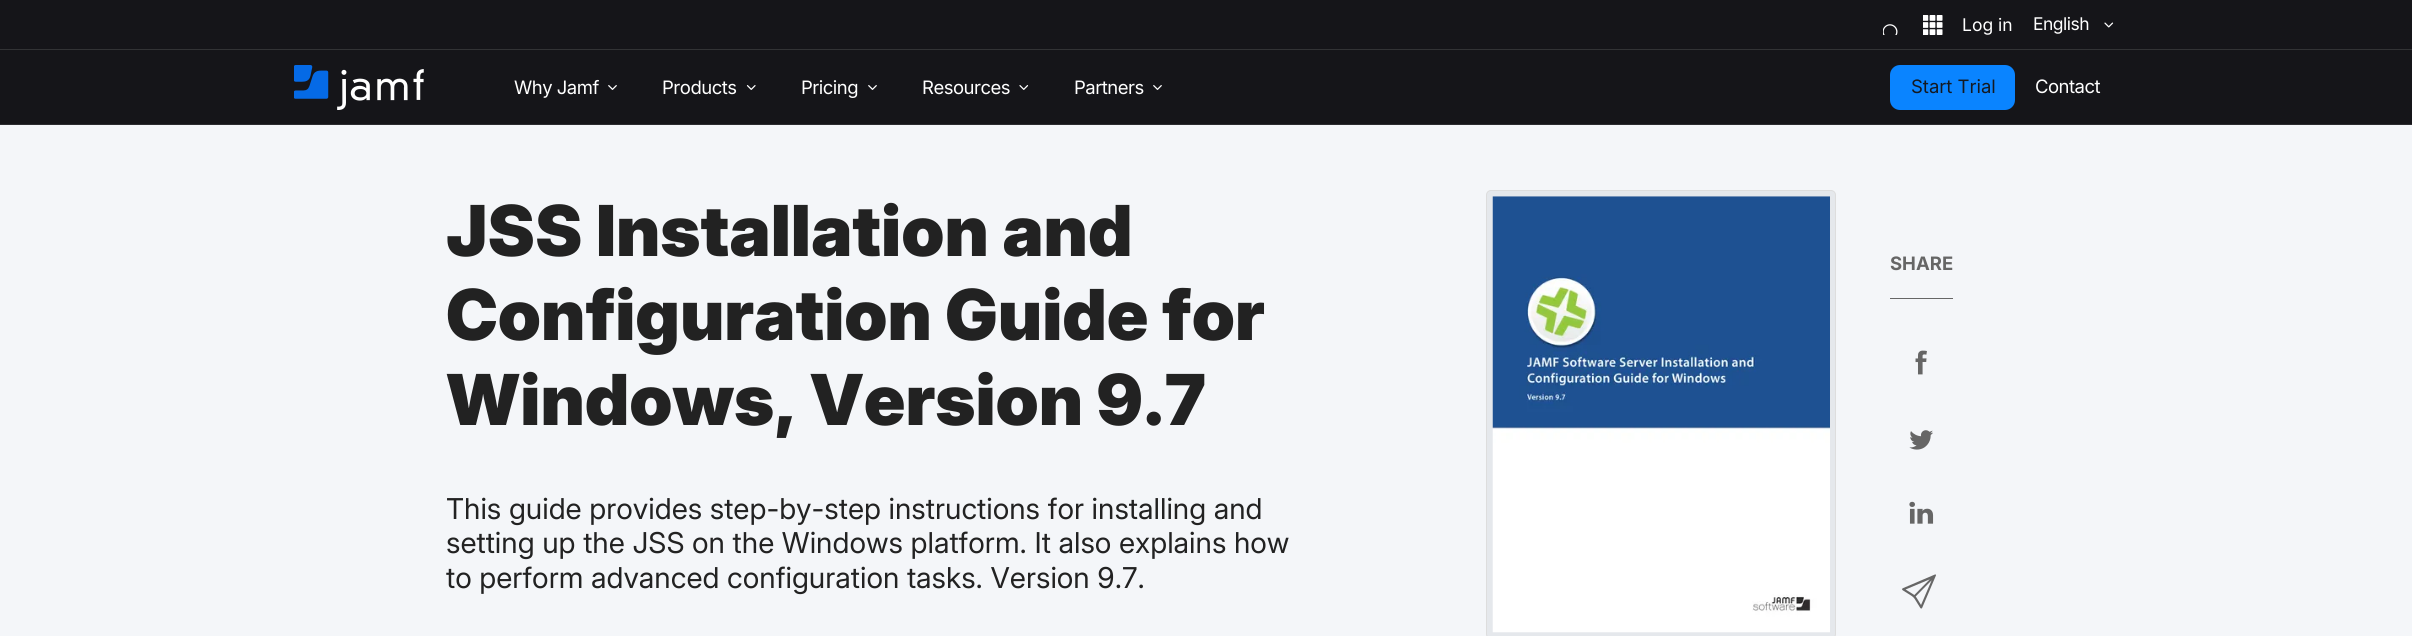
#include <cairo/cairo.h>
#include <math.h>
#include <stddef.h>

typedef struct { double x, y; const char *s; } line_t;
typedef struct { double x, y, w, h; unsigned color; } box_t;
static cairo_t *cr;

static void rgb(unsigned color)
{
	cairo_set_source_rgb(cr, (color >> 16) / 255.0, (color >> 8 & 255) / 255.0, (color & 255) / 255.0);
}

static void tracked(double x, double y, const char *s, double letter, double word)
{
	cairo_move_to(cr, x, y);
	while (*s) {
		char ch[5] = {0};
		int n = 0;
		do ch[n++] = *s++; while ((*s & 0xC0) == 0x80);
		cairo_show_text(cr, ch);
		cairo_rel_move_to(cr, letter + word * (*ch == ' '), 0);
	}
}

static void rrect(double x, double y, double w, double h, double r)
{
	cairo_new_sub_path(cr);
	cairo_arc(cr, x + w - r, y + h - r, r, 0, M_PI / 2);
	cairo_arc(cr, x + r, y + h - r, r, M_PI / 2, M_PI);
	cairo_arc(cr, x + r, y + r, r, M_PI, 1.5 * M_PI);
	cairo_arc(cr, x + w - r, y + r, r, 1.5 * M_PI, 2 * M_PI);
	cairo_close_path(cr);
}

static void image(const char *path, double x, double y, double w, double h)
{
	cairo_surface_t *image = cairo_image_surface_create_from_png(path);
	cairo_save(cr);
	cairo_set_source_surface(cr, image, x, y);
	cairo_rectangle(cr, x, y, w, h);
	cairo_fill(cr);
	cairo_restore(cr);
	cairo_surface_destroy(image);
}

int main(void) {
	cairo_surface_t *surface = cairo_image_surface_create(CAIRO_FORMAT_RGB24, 2412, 636);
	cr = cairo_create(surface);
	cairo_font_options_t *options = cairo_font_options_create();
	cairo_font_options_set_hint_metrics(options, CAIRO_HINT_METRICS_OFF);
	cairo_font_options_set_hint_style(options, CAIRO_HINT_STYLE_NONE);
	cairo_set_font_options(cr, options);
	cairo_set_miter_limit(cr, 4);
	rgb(0xf4f6f9);
	cairo_paint(cr);
	{
		static const box_t items[] = {
			{0, 0, 2412, 124, 0x151519},
			{0, 124, 2412, 1, 0x2c2c30},
			{0, 49, 2412, 1, 0x323335},
		};
		for (size_t i = 0; i < sizeof items / sizeof *items; i++) {
			rgb(items[i].color);
			cairo_rectangle(cr, items[i].x, items[i].y, items[i].w, items[i].h);
			cairo_fill(cr);
		}
	}
	image("img/1.png", 1883, 24, 15, 11);
	image("img/2.png", 1923, 15, 20, 20);
	image("img/3.png", 2104, 22, 10, 6);
	image("img/4.png", 294, 65, 130, 45);
	image("img/5.png", 608, 85, 9, 5);
	image("img/6.png", 746, 85, 10, 5);
	image("img/5.png", 868, 85, 9, 5);
	image("img/7.png", 1019, 85, 10, 5);
	image("img/5.png", 1153, 85, 9, 5);
	rgb(0x0a84ff);
	rrect(1890, 65, 125, 45, 10);
	cairo_fill(cr);
	rgb(0xe5e8ec);
	rrect(1486.5, 190.5, 349, 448, 4.5);
	cairo_fill_preserve(cr);
	rgb(0xdddddd);
	cairo_set_line_width(cr, 1);
	cairo_stroke(cr);
	image("img/8.png", 1492, 196, 338, 437);
	rgb(0x666666);
	cairo_rectangle(cr, 1890, 298, 63, 1);
	cairo_fill(cr);
	image("img/9.png", 1915, 350, 12, 25);
	image("img/10.png", 1909, 430, 24, 20);
	image("img/11.png", 1909, 501, 25, 23);
	image("img/12.png", 1902, 574, 34, 35);
	cairo_select_font_face(cr, "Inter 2", CAIRO_FONT_SLANT_NORMAL, CAIRO_FONT_WEIGHT_NORMAL);
	cairo_set_font_size(cr, 17.5);
	rgb(0xffffff);
	cairo_move_to(cr, 1962, 31);
	cairo_show_text(cr, "Log in");
	tracked(2033, 30, "English", -0.5, 0);
	cairo_set_font_size(cr, 18.5);
	{
		static const line_t items[] = {
			{514, 94, "Why Jamf"},
			{662, 94, "Products"},
			{801, 94, "Pricing"},
			{922, 94, "Resources"},
			{1074, 94, "Partners"},
		};
		for (size_t i = 0; i < sizeof items / sizeof *items; i++) {
			tracked(items[i].x, items[i].y, items[i].s, -0.5, 0);
		}
	}
	rgb(0x141920);
	cairo_move_to(cr, 1911, 93);
	cairo_show_text(cr, "Start Trial");
	rgb(0xffffff);
	tracked(2035, 93, "Contact", -0.5, 0);
	cairo_select_font_face(cr, "Inter Black", CAIRO_FONT_SLANT_NORMAL, CAIRO_FONT_WEIGHT_NORMAL);
	cairo_set_font_size(cr, 70.25);
	rgb(0x222222);
	{
		static const line_t items[] = {
			{446, 256, "JSS Installation and"},
			{446, 340, "Configuration Guide for"},
			{446, 425, "Windows, Version 9.7"},
		};
		for (size_t i = 0; i < sizeof items / sizeof *items; i++) {
			cairo_move_to(cr, items[i].x, items[i].y);
			cairo_show_text(cr, items[i].s);
		}
	}
	cairo_select_font_face(cr, "Inter", CAIRO_FONT_SLANT_NORMAL, CAIRO_FONT_WEIGHT_BOLD);
	cairo_set_font_size(cr, 18.5);
	rgb(0x666666);
	cairo_move_to(cr, 1890, 270);
	cairo_show_text(cr, "SHARE");
	cairo_select_font_face(cr, "Inter", CAIRO_FONT_SLANT_NORMAL, CAIRO_FONT_WEIGHT_NORMAL);
	cairo_set_font_size(cr, 28.75);
	rgb(0x222222);
	{
		static const line_t items[] = {
			{446, 519, "This guide provides step-by-step instructions for installing and"},
			{446, 553, "setting up the JSS on the Windows platform. It also explains how"},
			{446, 588, "to perform advanced configuration tasks. Version 9.7."},
		};
		for (size_t i = 0; i < sizeof items / sizeof *items; i++) {
			cairo_move_to(cr, items[i].x, items[i].y);
			cairo_show_text(cr, items[i].s);
		}
	}
	cairo_surface_write_to_png(surface, "page.png");
	cairo_font_options_destroy(options);
	cairo_destroy(cr);
	cairo_surface_destroy(surface);
	return 0;
}
